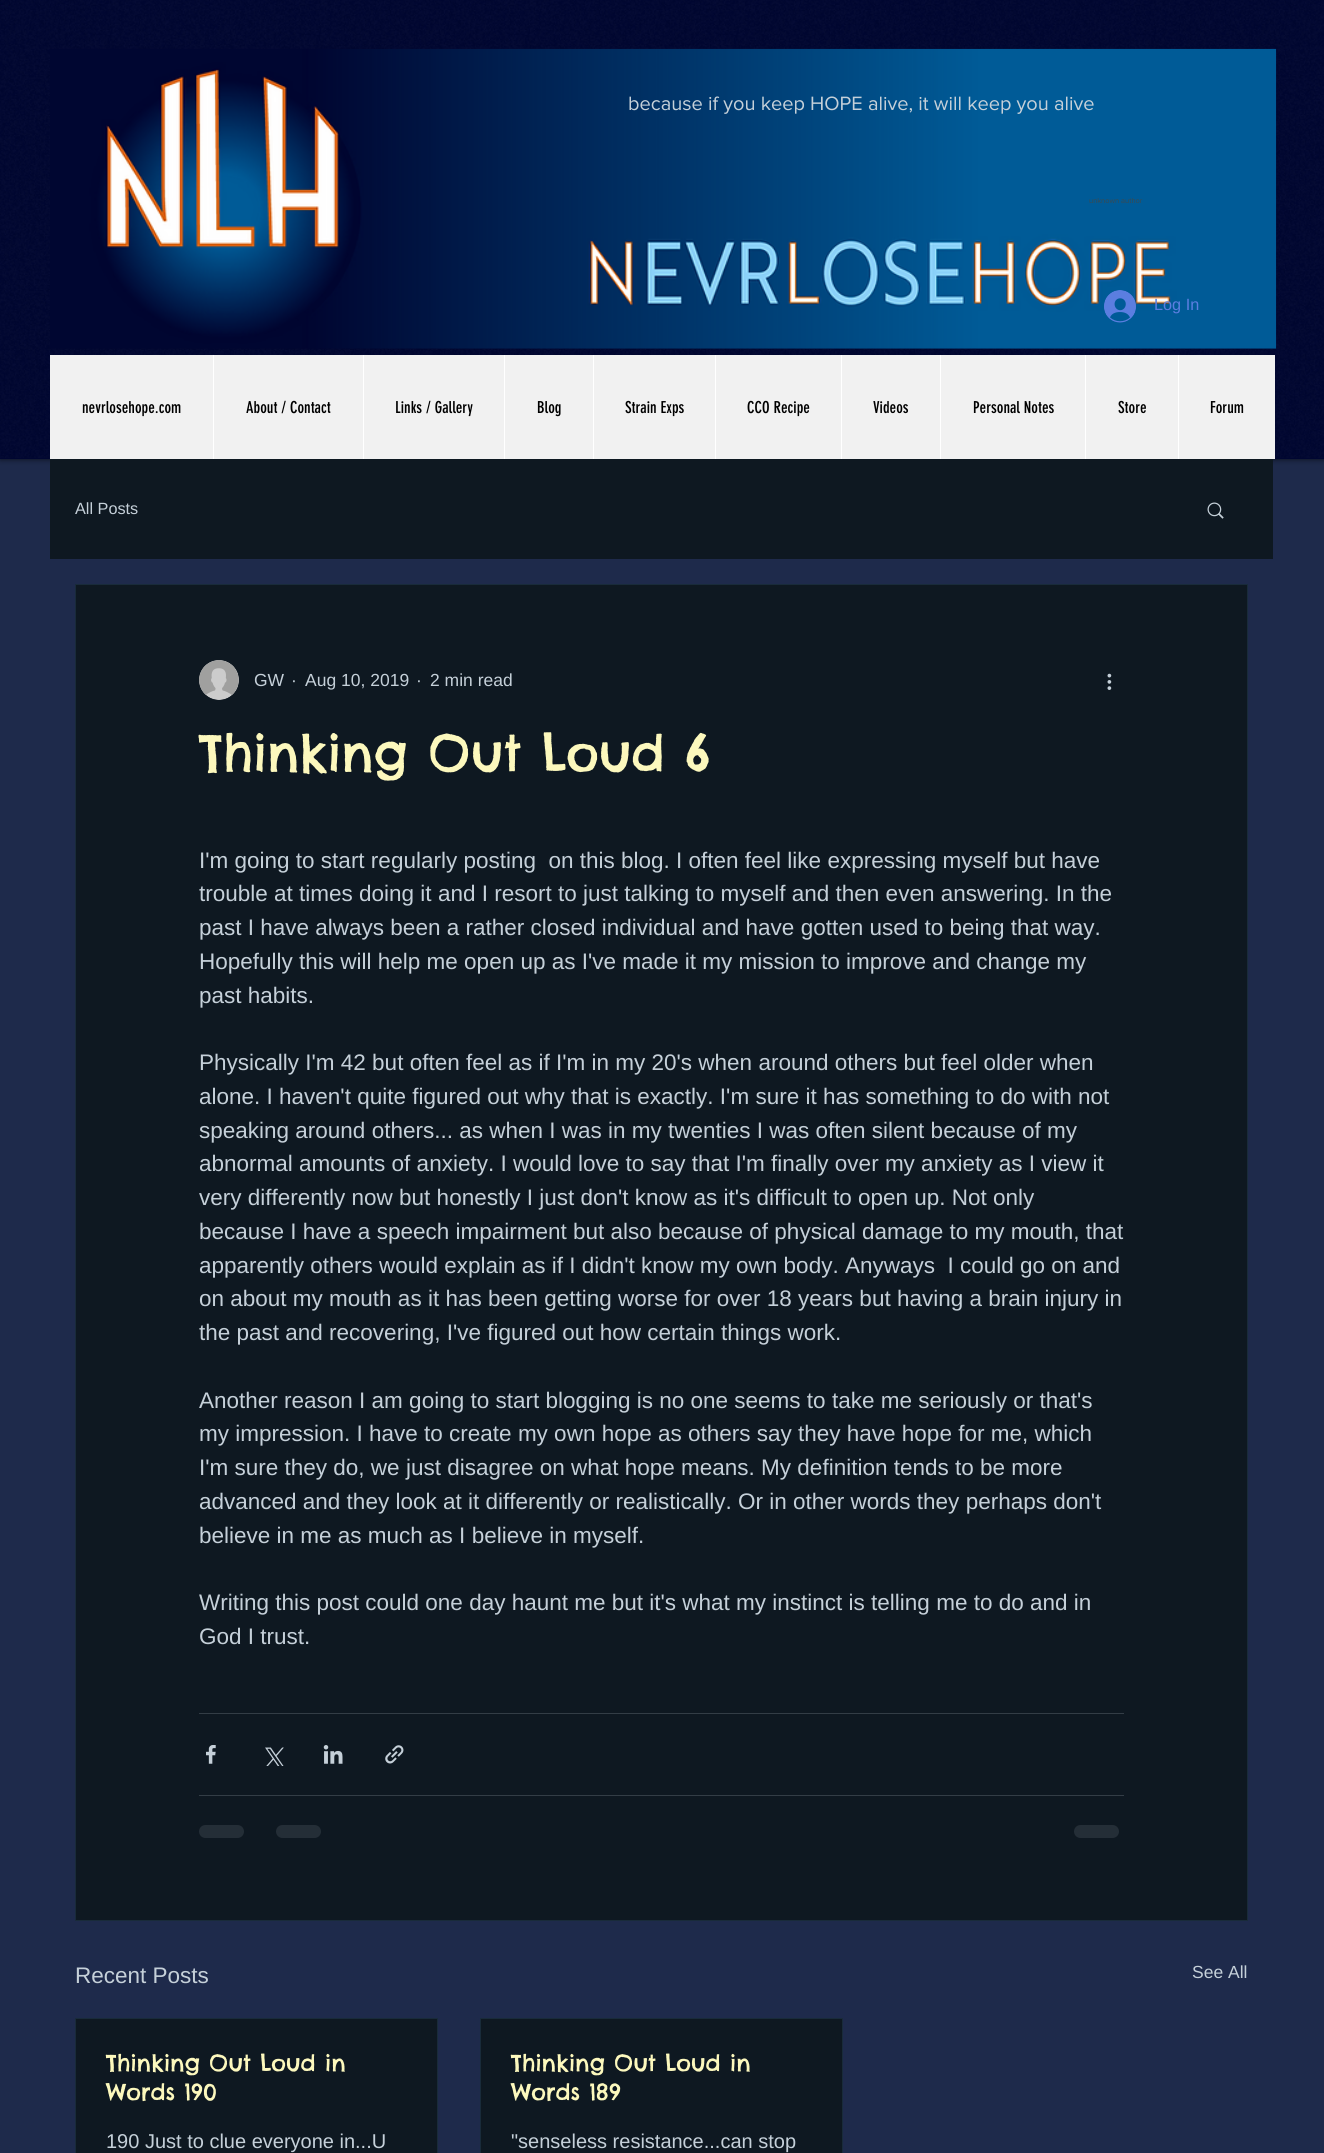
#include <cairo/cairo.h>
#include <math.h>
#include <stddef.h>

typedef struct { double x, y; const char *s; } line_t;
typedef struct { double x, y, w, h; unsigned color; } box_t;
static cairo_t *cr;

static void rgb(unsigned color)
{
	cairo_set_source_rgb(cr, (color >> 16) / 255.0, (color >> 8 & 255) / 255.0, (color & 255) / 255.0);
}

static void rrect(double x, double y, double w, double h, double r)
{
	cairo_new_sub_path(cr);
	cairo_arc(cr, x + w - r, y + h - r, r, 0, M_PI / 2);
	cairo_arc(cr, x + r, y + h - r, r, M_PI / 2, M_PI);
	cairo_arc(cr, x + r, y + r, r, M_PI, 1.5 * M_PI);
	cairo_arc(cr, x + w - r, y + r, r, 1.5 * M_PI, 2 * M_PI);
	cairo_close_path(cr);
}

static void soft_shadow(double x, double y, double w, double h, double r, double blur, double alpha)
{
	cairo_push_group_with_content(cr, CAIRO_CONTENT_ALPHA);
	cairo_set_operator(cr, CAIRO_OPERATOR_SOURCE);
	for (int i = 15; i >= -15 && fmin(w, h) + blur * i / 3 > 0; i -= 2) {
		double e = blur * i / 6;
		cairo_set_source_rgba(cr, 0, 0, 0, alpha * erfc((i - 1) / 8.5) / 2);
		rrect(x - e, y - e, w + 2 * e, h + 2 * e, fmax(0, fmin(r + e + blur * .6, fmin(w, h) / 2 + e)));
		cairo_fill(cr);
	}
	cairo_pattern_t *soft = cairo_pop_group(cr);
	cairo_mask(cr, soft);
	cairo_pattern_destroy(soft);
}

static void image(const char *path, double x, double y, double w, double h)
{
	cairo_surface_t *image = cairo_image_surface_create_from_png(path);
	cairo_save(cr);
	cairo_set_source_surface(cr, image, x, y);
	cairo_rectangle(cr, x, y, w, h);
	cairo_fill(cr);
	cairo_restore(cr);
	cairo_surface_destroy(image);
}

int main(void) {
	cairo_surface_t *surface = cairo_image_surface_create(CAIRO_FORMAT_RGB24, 1324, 2153);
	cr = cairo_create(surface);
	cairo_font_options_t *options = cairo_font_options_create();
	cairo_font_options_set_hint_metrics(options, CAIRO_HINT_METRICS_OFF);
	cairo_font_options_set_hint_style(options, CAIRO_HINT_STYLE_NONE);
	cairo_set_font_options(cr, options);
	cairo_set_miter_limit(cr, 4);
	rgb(0x1e2a4b);
	cairo_paint(cr);
	rgb(0x000000);
	soft_shadow(0, -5, 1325, 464, 0, 3, 0.7);
	rgb(0x000631);
	cairo_rectangle(cr, 0, 0, 1324, 459);
	cairo_fill(cr);
	image("img/1.png", 0, 0, 1324, 458);
	image("img/2.png", 50, 48, 1227, 301);
	image("img/3.png", 1104, 290, 32, 33);
	{
		static const box_t items[] = {
			{50, 355, 1225, 104, 0xf1f1f1},
			{213, 355, 1, 104, 0xffffff},
			{363, 355, 1, 104, 0xffffff},
			{504, 355, 1, 104, 0xffffff},
			{593, 355, 1, 104, 0xffffff},
			{715, 355, 1, 104, 0xffffff},
			{841, 355, 1, 104, 0xffffff},
			{940, 355, 1, 104, 0xffffff},
			{1085, 355, 1, 104, 0xffffff},
			{1178, 355, 1, 104, 0xffffff},
			{50, 459, 1223, 100, 0x0e1821},
		};
		for (size_t i = 0; i < sizeof items / sizeof *items; i++) {
			rgb(items[i].color);
			cairo_rectangle(cr, items[i].x, items[i].y, items[i].w, items[i].h);
			cairo_fill(cr);
		}
	}
	image("img/4.png", 1207, 502, 17, 17);
	cairo_rectangle(cr, 75.5, 584.5, 1172, 1336);
	cairo_fill_preserve(cr);
	rgb(0x192b3a);
	cairo_set_line_width(cr, 1);
	cairo_stroke(cr);
	image("img/5.png", 199, 660, 40, 40);
	image("img/6.png", 1107, 673, 5, 17);
	rgb(0x333d46);
	cairo_rectangle(cr, 199, 1713, 925, 1);
	cairo_fill(cr);
	image("img/7.png", 206, 1745, 10, 19);
	image("img/8.png", 265, 1747, 19, 19);
	image("img/9.png", 323, 1745, 20, 19);
	image("img/10.png", 385, 1745, 19, 19);
	cairo_rectangle(cr, 199, 1795, 925, 1);
	cairo_fill(cr);
	rgb(0x242e37);
	rrect(199, 1825, 45, 13, 6.5);
	cairo_fill(cr);
	rrect(276, 1825, 45, 13, 6.5);
	cairo_fill(cr);
	rrect(1074, 1825, 45, 13, 6.5);
	cairo_fill(cr);
	rgb(0x0e1821);
	cairo_rectangle(cr, 75.5, 2018.5, 362, 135);
	cairo_fill_preserve(cr);
	rgb(0x192b3a);
	cairo_stroke(cr);
	rgb(0x0e1821);
	cairo_rectangle(cr, 480.5, 2018.5, 362, 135);
	cairo_fill_preserve(cr);
	rgb(0x192b3a);
	cairo_stroke(cr);
	cairo_select_font_face(cr, "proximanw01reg", CAIRO_FONT_SLANT_NORMAL, CAIRO_FONT_WEIGHT_NORMAL);
	cairo_set_font_size(cr, 20);
	rgb(0xc5d0d9);
	cairo_move_to(cr, 628, 110);
	cairo_show_text(cr, "because if you keep HOPE alive, it will keep you alive");
	cairo_set_font_size(cr, 7.5);
	rgb(0x3d484d);
	cairo_move_to(cr, 1089, 203);
	cairo_show_text(cr, "unknown author");
	cairo_select_font_face(cr, "Liberation Sans", CAIRO_FONT_SLANT_NORMAL, CAIRO_FONT_WEIGHT_NORMAL);
	cairo_set_font_size(cr, 16.25);
	rgb(0x5b7ee0);
	cairo_move_to(cr, 1154, 310);
	cairo_show_text(cr, "Log In");
	cairo_select_font_face(cr, "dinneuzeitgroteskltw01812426", CAIRO_FONT_SLANT_NORMAL, CAIRO_FONT_WEIGHT_NORMAL);
	rgb(0x000000);
	{
		static const line_t items[] = {
			{82, 413, "nevrlosehope.com"},
			{246, 413, "About / Contact"},
			{395, 413, "Links / Gallery"},
			{537, 413, "Blog"},
			{625, 413, "Strain Exps"},
			{747, 413, "CCO Recipe"},
			{873, 413, "Videos"},
			{973, 413, "Personal Notes"},
			{1118, 413, "Store"},
			{1210, 413, "Forum"},
		};
		for (size_t i = 0; i < sizeof items / sizeof *items; i++) {
			cairo_move_to(cr, items[i].x, items[i].y);
			cairo_show_text(cr, items[i].s);
		}
	}
	cairo_select_font_face(cr, "Liberation Sans", CAIRO_FONT_SLANT_NORMAL, CAIRO_FONT_WEIGHT_NORMAL);
	rgb(0xc5d0d9);
	cairo_move_to(cr, 75, 514);
	cairo_show_text(cr, "All Posts");
	cairo_set_font_size(cr, 17.5);
	{
		static const line_t items[] = {
			{254, 686, "GW"},
			{291, 686, "·"},
			{305, 686, "Aug 10, 2019"},
			{416, 686, "·"},
			{430, 686, "2 min read"},
		};
		for (size_t i = 0; i < sizeof items / sizeof *items; i++) {
			cairo_move_to(cr, items[i].x, items[i].y);
			cairo_show_text(cr, items[i].s);
		}
	}
	cairo_select_font_face(cr, "Chelsea Market", CAIRO_FONT_SLANT_NORMAL, CAIRO_FONT_WEIGHT_NORMAL);
	cairo_set_font_size(cr, 50);
	rgb(0xfcf8bd);
	cairo_move_to(cr, 199, 771);
	cairo_show_text(cr, "Thinking Out Loud 6");
	cairo_select_font_face(cr, "Liberation Sans", CAIRO_FONT_SLANT_NORMAL, CAIRO_FONT_WEIGHT_NORMAL);
	cairo_set_font_size(cr, 22.5);
	rgb(0xc5d0d9);
	{
		static const line_t items[] = {
			{199, 868, "I'm going to start regularly posting  on this blog. I often feel like expressing myself but have"},
			{199, 901, "trouble at times doing it and I resort to just talking to myself and then even answering. In the"},
			{199, 935, "past I have always been a rather closed individual and have gotten used to being that way."},
			{199, 969, "Hopefully this will help me open up as I've made it my mission to improve and change my"},
			{199, 1003, "past habits."},
			{199, 1070, "Physically I'm 42 but often feel as if I'm in my 20's when around others but feel older when"},
			{199, 1104, "alone. I haven't quite figured out why that is exactly. I'm sure it has something to do with not"},
			{199, 1138, "speaking around others... as when I was in my twenties I was often silent because of my"},
			{199, 1171, "abnormal amounts of anxiety. I would love to say that I'm finally over my anxiety as I view it"},
			{199, 1205, "very differently now but honestly I just don't know as it's difficult to open up. Not only"},
			{199, 1239, "because I have a speech impairment but also because of physical damage to my mouth, that"},
			{199, 1273, "apparently others would explain as if I didn't know my own body. Anyways  I could go on and"},
			{199, 1306, "on about my mouth as it has been getting worse for over 18 years but having a brain injury in"},
			{199, 1340, "the past and recovering, I've figured out how certain things work."},
			{199, 1408, "Another reason I am going to start blogging is no one seems to take me seriously or that's"},
			{199, 1441, "my impression. I have to create my own hope as others say they have hope for me, which"},
			{199, 1475, "I'm sure they do, we just disagree on what hope means. My definition tends to be more"},
			{199, 1509, "advanced and they look at it differently or realistically. Or in other words they perhaps don't"},
			{199, 1543, "believe in me as much as I believe in myself."},
			{199, 1610, "Writing this post could one day haunt me but it's what my instinct is telling me to do and in"},
			{199, 1644, "God I trust."},
			{75, 1983, "Recent Posts"},
		};
		for (size_t i = 0; i < sizeof items / sizeof *items; i++) {
			cairo_move_to(cr, items[i].x, items[i].y);
			cairo_show_text(cr, items[i].s);
		}
	}
	cairo_set_font_size(cr, 17.5);
	cairo_move_to(cr, 1192, 1978);
	cairo_show_text(cr, "See All");
	cairo_select_font_face(cr, "Chelsea Market", CAIRO_FONT_SLANT_NORMAL, CAIRO_FONT_WEIGHT_NORMAL);
	cairo_set_font_size(cr, 22.5);
	rgb(0xfcf8bd);
	cairo_move_to(cr, 106, 2071);
	cairo_show_text(cr, "Thinking Out Loud in");
	cairo_move_to(cr, 106, 2100);
	cairo_show_text(cr, "Words 190");
	cairo_select_font_face(cr, "Liberation Sans", CAIRO_FONT_SLANT_NORMAL, CAIRO_FONT_WEIGHT_NORMAL);
	cairo_set_font_size(cr, 20);
	rgb(0xc5d0d9);
	cairo_move_to(cr, 106, 2148);
	cairo_show_text(cr, "190 Just to clue everyone in...U");
	cairo_select_font_face(cr, "Chelsea Market", CAIRO_FONT_SLANT_NORMAL, CAIRO_FONT_WEIGHT_NORMAL);
	cairo_set_font_size(cr, 22.5);
	rgb(0xfcf8bd);
	cairo_move_to(cr, 511, 2071);
	cairo_show_text(cr, "Thinking Out Loud in");
	cairo_move_to(cr, 511, 2100);
	cairo_show_text(cr, "Words 189");
	cairo_select_font_face(cr, "Liberation Sans", CAIRO_FONT_SLANT_NORMAL, CAIRO_FONT_WEIGHT_NORMAL);
	cairo_set_font_size(cr, 20);
	rgb(0xc5d0d9);
	cairo_move_to(cr, 511, 2148);
	cairo_show_text(cr, "\"senseless resistance...can stop");
	cairo_surface_write_to_png(surface, "page.png");
	cairo_font_options_destroy(options);
	cairo_destroy(cr);
	cairo_surface_destroy(surface);
	return 0;
}
